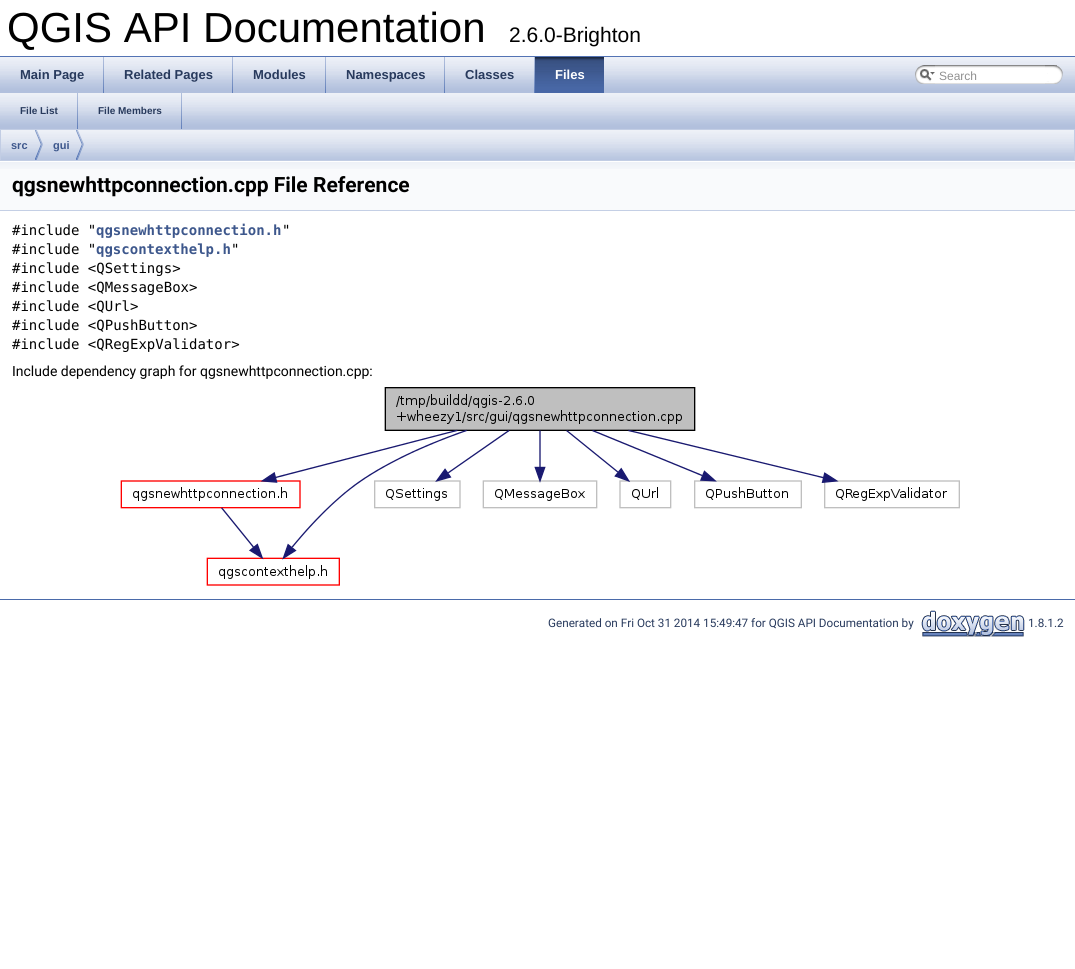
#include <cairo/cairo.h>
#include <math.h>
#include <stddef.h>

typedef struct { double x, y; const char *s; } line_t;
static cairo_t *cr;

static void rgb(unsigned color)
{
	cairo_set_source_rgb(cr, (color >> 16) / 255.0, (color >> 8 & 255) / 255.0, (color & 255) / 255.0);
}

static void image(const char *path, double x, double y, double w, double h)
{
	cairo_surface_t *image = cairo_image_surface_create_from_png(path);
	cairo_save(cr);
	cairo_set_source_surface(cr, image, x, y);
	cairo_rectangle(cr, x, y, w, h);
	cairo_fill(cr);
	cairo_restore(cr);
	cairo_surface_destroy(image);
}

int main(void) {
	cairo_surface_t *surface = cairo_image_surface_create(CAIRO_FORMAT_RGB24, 1075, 969);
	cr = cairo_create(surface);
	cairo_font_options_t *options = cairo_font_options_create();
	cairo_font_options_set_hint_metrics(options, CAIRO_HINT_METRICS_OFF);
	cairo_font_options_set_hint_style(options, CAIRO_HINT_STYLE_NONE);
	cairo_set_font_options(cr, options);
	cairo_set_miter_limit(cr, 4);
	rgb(0xffffff);
	cairo_paint(cr);
	rgb(0x5373b4);
	cairo_rectangle(cr, 0, 56, 1075, 1);
	cairo_fill(cr);
	image("img/1.png", 0, 57, 1075, 36);
	image("img/2.png", 103, 57, 1, 36);
	image("img/2.png", 232, 57, 1, 36);
	image("img/2.png", 325, 57, 1, 36);
	image("img/2.png", 444, 57, 1, 36);
	image("img/2.png", 534, 57, 1, 36);
	image("img/3.png", 535, 57, 69, 36);
	image("img/4.png", 915, 65, 20, 19);
	image("img/5.png", 920, 69, 15, 12);
	image("img/6.png", 935, 65, 122, 19);
	image("img/7.png", 1045, 65, 18, 19);
	image("img/1.png", 0, 93, 1075, 36);
	image("img/2.png", 77, 93, 1, 36);
	image("img/2.png", 181, 93, 1, 36);
	image("img/8.png", 1, 130, 1073, 30);
	cairo_rectangle(cr, 0.5, 129.5, 1074, 31);
	rgb(0xc2cde4);
	cairo_set_line_width(cr, 1);
	cairo_stroke(cr);
	image("img/9.png", 35, 130, 8, 30);
	image("img/9.png", 76, 130, 8, 30);
	rgb(0xf9fafc);
	cairo_rectangle(cr, 0, 169, 1075, 41);
	cairo_fill(cr);
	image("img/10.png", 0, 161, 1075, 8);
	rgb(0xc4cfe5);
	cairo_rectangle(cr, 0, 210, 1075, 1);
	cairo_fill(cr);
	image("img/11.png", 120, 387, 840, 199);
	rgb(0x4a6aaa);
	cairo_rectangle(cr, 0, 599, 1075, 1);
	cairo_fill(cr);
	image("img/12.png", 921, 610, 104, 27);
	cairo_select_font_face(cr, "Liberation Sans", CAIRO_FONT_SLANT_NORMAL, CAIRO_FONT_WEIGHT_NORMAL);
	cairo_set_font_size(cr, 42);
	rgb(0x000000);
	cairo_move_to(cr, 7, 42);
	cairo_show_text(cr, "QGIS API Documentation");
	cairo_set_font_size(cr, 21);
	cairo_move_to(cr, 509, 42);
	cairo_show_text(cr, "2.6.0-Brighton");
	cairo_select_font_face(cr, "Liberation Sans", CAIRO_FONT_SLANT_NORMAL, CAIRO_FONT_WEIGHT_BOLD);
	cairo_set_font_size(cr, 13);
	rgb(0x283a5d);
	{
		static const line_t items[] = {
			{20, 79, "Main Page"},
			{124, 79, "Related Pages"},
			{253, 79, "Modules"},
			{346, 79, "Namespaces"},
			{465, 79, "Classes"},
		};
		for (size_t i = 0; i < sizeof items / sizeof *items; i++) {
			cairo_move_to(cr, items[i].x, items[i].y);
			cairo_show_text(cr, items[i].s);
		}
	}
	rgb(0xffffff);
	cairo_move_to(cr, 555, 79);
	cairo_show_text(cr, "Files");
	cairo_select_font_face(cr, "Liberation Sans", CAIRO_FONT_SLANT_NORMAL, CAIRO_FONT_WEIGHT_NORMAL);
	cairo_set_font_size(cr, 12);
	rgb(0x909090);
	cairo_move_to(cr, 939, 80);
	cairo_show_text(cr, "Search");
	cairo_select_font_face(cr, "Liberation Sans", CAIRO_FONT_SLANT_NORMAL, CAIRO_FONT_WEIGHT_BOLD);
	cairo_set_font_size(cr, 10);
	rgb(0x283a5d);
	cairo_move_to(cr, 20, 114);
	cairo_show_text(cr, "File List");
	cairo_move_to(cr, 98, 114);
	cairo_show_text(cr, "File Members");
	cairo_set_font_size(cr, 11);
	rgb(0x3d578c);
	cairo_move_to(cr, 11, 149);
	cairo_show_text(cr, "src");
	cairo_move_to(cr, 53, 149);
	cairo_show_text(cr, "gui");
	cairo_select_font_face(cr, "Roboto", CAIRO_FONT_SLANT_NORMAL, CAIRO_FONT_WEIGHT_BOLD);
	cairo_set_font_size(cr, 21);
	rgb(0x000000);
	cairo_move_to(cr, 12, 192);
	cairo_show_text(cr, "qgsnewhttpconnection.cpp File Reference");
	cairo_select_font_face(cr, "DejaVu Sans Mono", CAIRO_FONT_SLANT_NORMAL, CAIRO_FONT_WEIGHT_NORMAL);
	cairo_set_font_size(cr, 14);
	cairo_move_to(cr, 12, 235);
	cairo_show_text(cr, "#include \"");
	cairo_select_font_face(cr, "DejaVu Sans Mono", CAIRO_FONT_SLANT_NORMAL, CAIRO_FONT_WEIGHT_BOLD);
	rgb(0x3d578c);
	cairo_move_to(cr, 96, 235);
	cairo_show_text(cr, "qgsnewhttpconnection.h");
	cairo_select_font_face(cr, "DejaVu Sans Mono", CAIRO_FONT_SLANT_NORMAL, CAIRO_FONT_WEIGHT_NORMAL);
	rgb(0x000000);
	cairo_move_to(cr, 282, 235);
	cairo_show_text(cr, "\"");
	cairo_move_to(cr, 12, 254);
	cairo_show_text(cr, "#include \"");
	cairo_select_font_face(cr, "DejaVu Sans Mono", CAIRO_FONT_SLANT_NORMAL, CAIRO_FONT_WEIGHT_BOLD);
	rgb(0x3d578c);
	cairo_move_to(cr, 96, 254);
	cairo_show_text(cr, "qgscontexthelp.h");
	cairo_select_font_face(cr, "DejaVu Sans Mono", CAIRO_FONT_SLANT_NORMAL, CAIRO_FONT_WEIGHT_NORMAL);
	rgb(0x000000);
	{
		static const line_t items[] = {
			{231, 254, "\""},
			{12, 273, "#include <QSettings>"},
			{12, 292, "#include <QMessageBox>"},
			{12, 311, "#include <QUrl>"},
			{12, 330, "#include <QPushButton>"},
			{12, 349, "#include <QRegExpValidator>"},
		};
		for (size_t i = 0; i < sizeof items / sizeof *items; i++) {
			cairo_move_to(cr, items[i].x, items[i].y);
			cairo_show_text(cr, items[i].s);
		}
	}
	cairo_select_font_face(cr, "Roboto", CAIRO_FONT_SLANT_NORMAL, CAIRO_FONT_WEIGHT_NORMAL);
	cairo_move_to(cr, 12, 376);
	cairo_show_text(cr, "Include dependency graph for qgsnewhttpconnection.cpp:");
	cairo_set_font_size(cr, 11.7);
	rgb(0x283a5d);
	cairo_move_to(cr, 548, 627);
	cairo_show_text(cr, "Generated on Fri Oct 31 2014 15:49:47 for QGIS API Documentation by");
	cairo_move_to(cr, 1028, 627);
	cairo_show_text(cr, "1.8.1.2");
	cairo_surface_write_to_png(surface, "page.png");
	cairo_font_options_destroy(options);
	cairo_destroy(cr);
	cairo_surface_destroy(surface);
	return 0;
}
